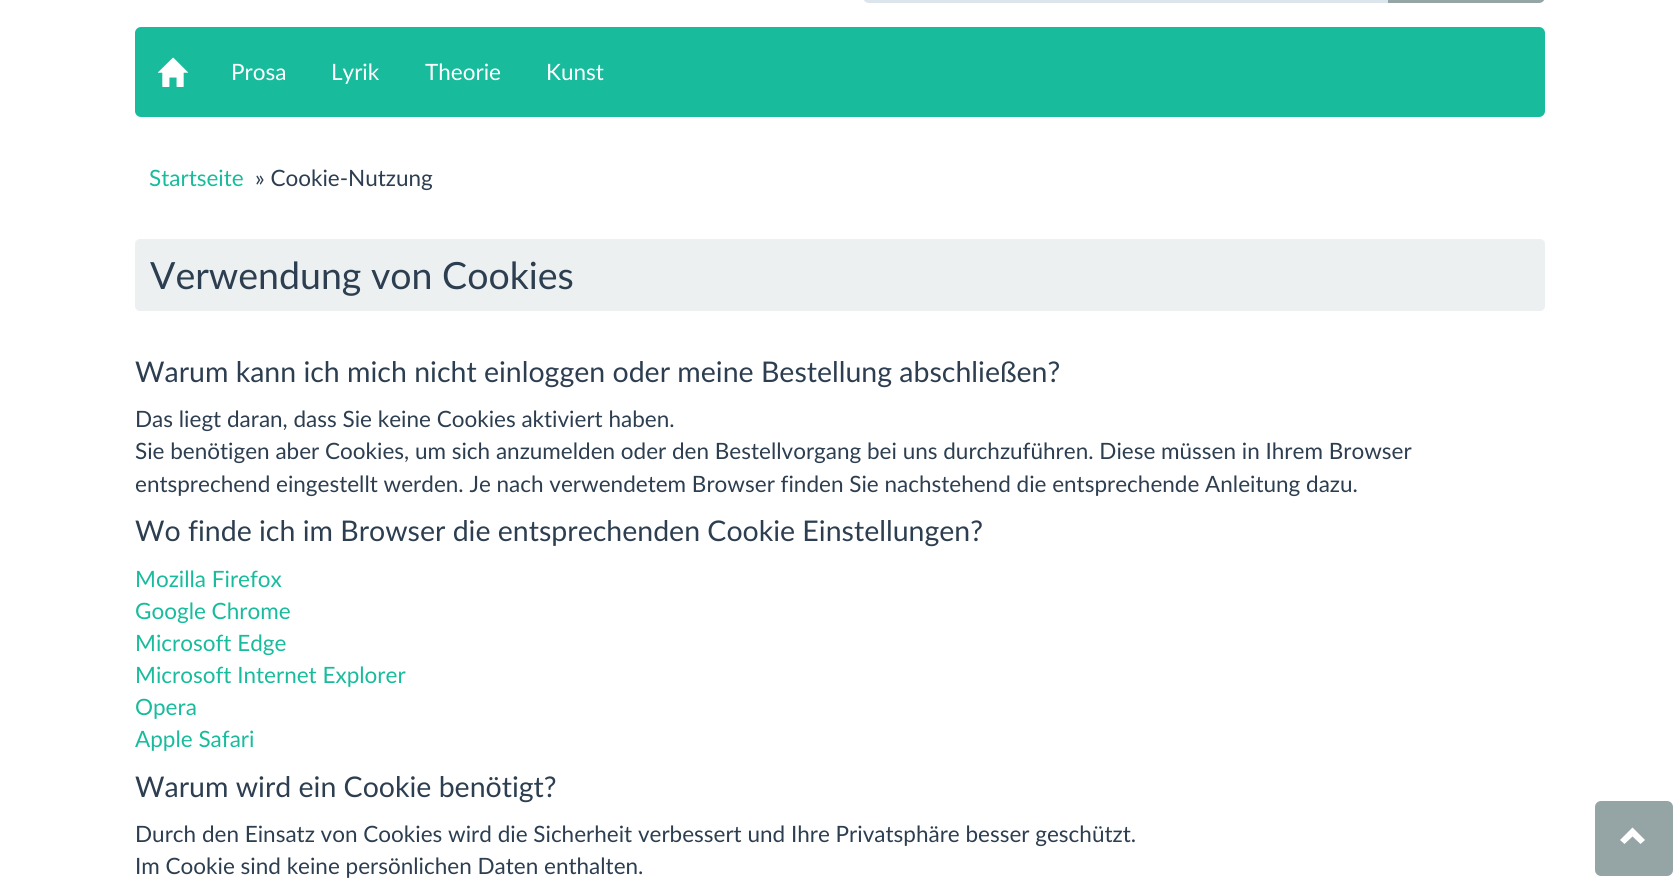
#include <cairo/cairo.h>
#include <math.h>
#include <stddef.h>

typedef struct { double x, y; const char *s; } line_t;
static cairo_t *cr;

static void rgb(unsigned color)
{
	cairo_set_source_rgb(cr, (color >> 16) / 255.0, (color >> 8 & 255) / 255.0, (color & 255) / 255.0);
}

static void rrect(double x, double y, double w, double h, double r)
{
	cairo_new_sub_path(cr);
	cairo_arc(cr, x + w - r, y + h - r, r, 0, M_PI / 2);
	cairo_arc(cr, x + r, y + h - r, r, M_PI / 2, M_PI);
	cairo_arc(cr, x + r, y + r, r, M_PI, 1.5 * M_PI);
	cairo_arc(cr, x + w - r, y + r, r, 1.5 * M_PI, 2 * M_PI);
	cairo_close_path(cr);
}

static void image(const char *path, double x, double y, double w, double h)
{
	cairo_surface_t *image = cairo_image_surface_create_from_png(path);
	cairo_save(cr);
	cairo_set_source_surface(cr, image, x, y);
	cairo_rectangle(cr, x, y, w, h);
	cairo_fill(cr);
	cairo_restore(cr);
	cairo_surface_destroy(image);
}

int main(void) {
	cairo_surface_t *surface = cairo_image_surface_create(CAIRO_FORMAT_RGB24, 1680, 883);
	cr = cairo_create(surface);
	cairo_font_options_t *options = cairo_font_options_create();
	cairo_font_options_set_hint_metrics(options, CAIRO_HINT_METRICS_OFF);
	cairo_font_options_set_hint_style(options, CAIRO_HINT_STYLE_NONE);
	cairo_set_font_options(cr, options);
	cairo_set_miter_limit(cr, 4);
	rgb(0xffffff);
	cairo_paint(cr);
	cairo_new_path(cr);
	cairo_move_to(cr, 869, -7.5);
	cairo_line_to(cr, 996.5, -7.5);
	cairo_line_to(cr, 996.5, 1.5);
	cairo_line_to(cr, 869, 1.5);
	cairo_curve_to(cr, 866.5, 1.5, 864.5, -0.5, 864.5, -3);
	cairo_curve_to(cr, 864.5, -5.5, 866.5, -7.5, 869, -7.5);
	cairo_close_path(cr);
	rgb(0xdce4ec);
	cairo_set_line_width(cr, 3);
	cairo_stroke(cr);
	cairo_rectangle(cr, 999.5, -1.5, 388, 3);
	cairo_stroke(cr);
	cairo_new_path(cr);
	cairo_move_to(cr, 1389.5, -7.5);
	cairo_line_to(cr, 1539, -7.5);
	cairo_curve_to(cr, 1541.5, -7.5, 1543.5, -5.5, 1543.5, -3);
	cairo_curve_to(cr, 1543.5, -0.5, 1541.5, 1.5, 1539, 1.5);
	cairo_line_to(cr, 1389.5, 1.5);
	cairo_close_path(cr);
	rgb(0x95a5a6);
	cairo_stroke(cr);
	rgb(0x18bc9c);
	rrect(135, 27, 1410, 90, 6);
	cairo_fill(cr);
	image("img/1.png", 157, 57, 32, 30);
	rgb(0xecf0f1);
	rrect(135, 239, 1410, 72, 5);
	cairo_fill(cr);
	rgb(0x95a5a6);
	rrect(1596.5, 802.5, 75, 72, 4.5);
	cairo_fill_preserve(cr);
	cairo_stroke(cr);
	rgb(0xffffff);
	cairo_new_path(cr);
	cairo_move_to(cr, 1645, 840);
	cairo_line_to(cr, 1640.5, 844);
	cairo_line_to(cr, 1632.5, 836.5);
	cairo_line_to(cr, 1624.5, 844);
	cairo_line_to(cr, 1620, 840);
	cairo_line_to(cr, 1632.5, 827.5);
	cairo_close_path(cr);
	cairo_fill(cr);
	cairo_select_font_face(cr, "Lato", CAIRO_FONT_SLANT_NORMAL, CAIRO_FONT_WEIGHT_NORMAL);
	cairo_set_font_size(cr, 22.5);
	{
		static const line_t items[] = {
			{231, 80, "Prosa"},
			{331, 80, "Lyrik"},
			{425, 80, "Theorie"},
			{546, 80, "Kunst"},
		};
		for (size_t i = 0; i < sizeof items / sizeof *items; i++) {
			cairo_move_to(cr, items[i].x, items[i].y);
			cairo_show_text(cr, items[i].s);
		}
	}
	rgb(0x18bc9c);
	cairo_move_to(cr, 149, 186);
	cairo_show_text(cr, "Startseite");
	rgb(0x2c3e50);
	cairo_move_to(cr, 255, 186);
	cairo_show_text(cr, "» Cookie-Nutzung");
	cairo_set_font_size(cr, 37.5);
	cairo_move_to(cr, 150, 289);
	cairo_show_text(cr, "Verwendung von Cookies");
	cairo_set_font_size(cr, 28.5);
	cairo_move_to(cr, 135, 382);
	cairo_show_text(cr, "Warum kann ich mich nicht einloggen oder meine Bestellung abschließen?");
	cairo_set_font_size(cr, 22.5);
	{
		static const line_t items[] = {
			{135, 427, "Das liegt daran, dass Sie keine Cookies aktiviert haben."},
			{135, 459, "Sie benötigen aber Cookies, um sich anzumelden oder den Bestellvorgang bei uns durchzuführen. Diese müssen in Ihrem Browser"},
			{135, 492, "entsprechend eingestellt werden. Je nach verwendetem Browser finden Sie nachstehend die entsprechende Anleitung dazu."},
		};
		for (size_t i = 0; i < sizeof items / sizeof *items; i++) {
			cairo_move_to(cr, items[i].x, items[i].y);
			cairo_show_text(cr, items[i].s);
		}
	}
	cairo_set_font_size(cr, 28.5);
	cairo_move_to(cr, 135, 541);
	cairo_show_text(cr, "Wo finde ich im Browser die entsprechenden Cookie Einstellungen?");
	cairo_set_font_size(cr, 22.5);
	rgb(0x18bc9c);
	{
		static const line_t items[] = {
			{135, 587, "Mozilla Firefox"},
			{135, 619, "Google Chrome"},
			{135, 651, "Microsoft Edge"},
			{135, 683, "Microsoft Internet Explorer"},
			{135, 715, "Opera"},
			{135, 747, "Apple Safari"},
		};
		for (size_t i = 0; i < sizeof items / sizeof *items; i++) {
			cairo_move_to(cr, items[i].x, items[i].y);
			cairo_show_text(cr, items[i].s);
		}
	}
	cairo_set_font_size(cr, 28.5);
	rgb(0x2c3e50);
	cairo_move_to(cr, 135, 797);
	cairo_show_text(cr, "Warum wird ein Cookie benötigt?");
	cairo_set_font_size(cr, 22.5);
	cairo_move_to(cr, 135, 842);
	cairo_show_text(cr, "Durch den Einsatz von Cookies wird die Sicherheit verbessert und Ihre Privatsphäre besser geschützt.");
	cairo_move_to(cr, 135, 874);
	cairo_show_text(cr, "Im Cookie sind keine persönlichen Daten enthalten.");
	cairo_surface_write_to_png(surface, "page.png");
	cairo_font_options_destroy(options);
	cairo_destroy(cr);
	cairo_surface_destroy(surface);
	return 0;
}
